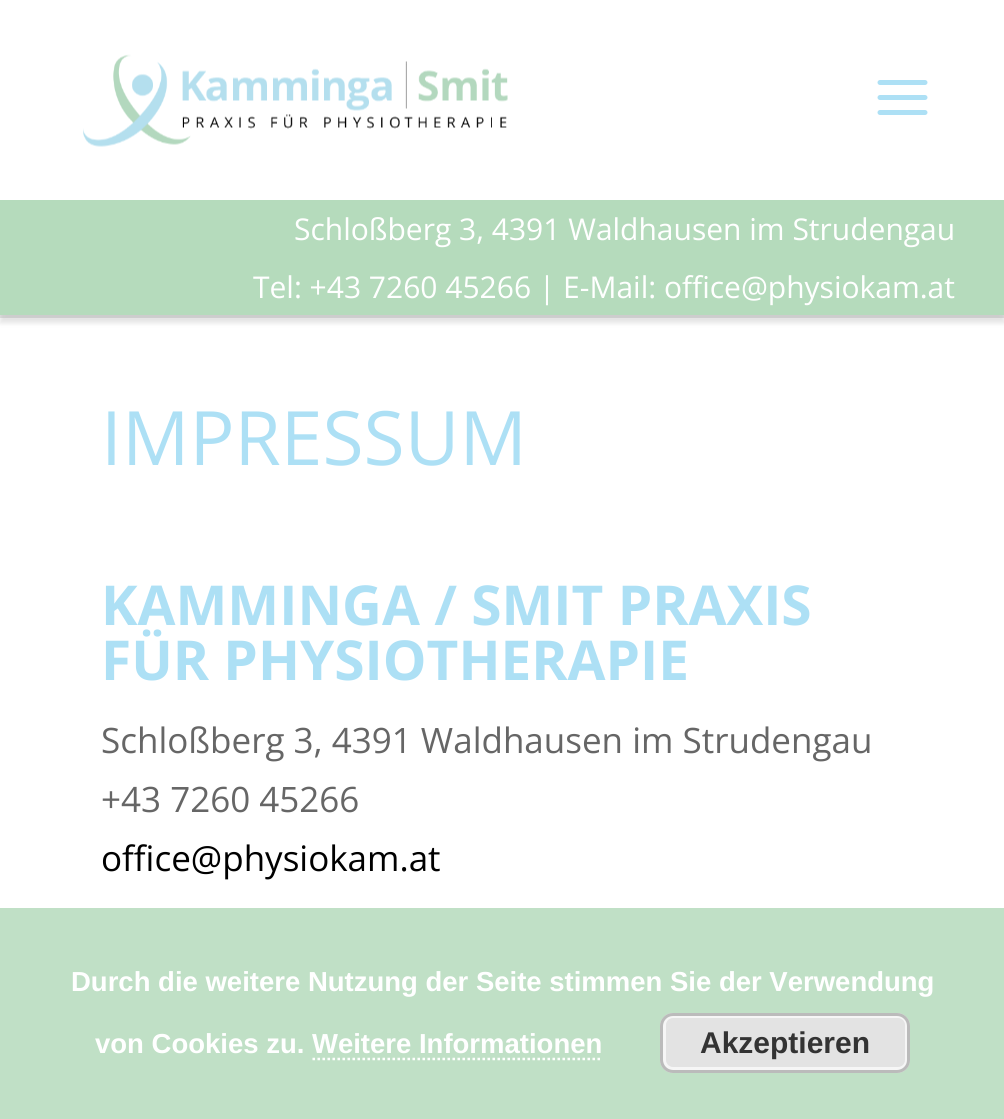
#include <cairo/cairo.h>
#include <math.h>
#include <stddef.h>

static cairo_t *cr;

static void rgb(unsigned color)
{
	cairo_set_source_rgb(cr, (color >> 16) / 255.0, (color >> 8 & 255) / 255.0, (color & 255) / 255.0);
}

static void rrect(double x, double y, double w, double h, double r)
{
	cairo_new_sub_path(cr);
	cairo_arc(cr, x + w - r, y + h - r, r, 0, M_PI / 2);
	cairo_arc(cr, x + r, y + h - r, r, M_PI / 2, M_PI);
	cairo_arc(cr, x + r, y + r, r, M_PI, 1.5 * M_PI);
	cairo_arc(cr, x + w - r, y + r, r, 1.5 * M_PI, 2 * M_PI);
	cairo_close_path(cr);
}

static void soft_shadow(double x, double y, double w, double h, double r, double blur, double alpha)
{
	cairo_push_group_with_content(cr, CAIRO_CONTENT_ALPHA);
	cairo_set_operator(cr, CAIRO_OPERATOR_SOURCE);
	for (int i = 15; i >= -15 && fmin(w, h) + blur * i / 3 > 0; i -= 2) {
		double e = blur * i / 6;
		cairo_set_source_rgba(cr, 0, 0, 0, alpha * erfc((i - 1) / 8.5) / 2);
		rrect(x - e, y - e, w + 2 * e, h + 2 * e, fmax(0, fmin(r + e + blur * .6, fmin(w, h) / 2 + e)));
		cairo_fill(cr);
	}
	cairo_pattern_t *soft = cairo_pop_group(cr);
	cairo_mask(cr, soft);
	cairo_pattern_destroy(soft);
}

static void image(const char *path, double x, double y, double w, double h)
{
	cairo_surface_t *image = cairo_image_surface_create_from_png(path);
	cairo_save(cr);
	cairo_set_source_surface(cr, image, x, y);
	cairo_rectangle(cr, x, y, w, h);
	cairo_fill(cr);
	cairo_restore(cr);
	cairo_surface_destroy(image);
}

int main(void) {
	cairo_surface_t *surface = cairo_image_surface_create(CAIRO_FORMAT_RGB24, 1004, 1119);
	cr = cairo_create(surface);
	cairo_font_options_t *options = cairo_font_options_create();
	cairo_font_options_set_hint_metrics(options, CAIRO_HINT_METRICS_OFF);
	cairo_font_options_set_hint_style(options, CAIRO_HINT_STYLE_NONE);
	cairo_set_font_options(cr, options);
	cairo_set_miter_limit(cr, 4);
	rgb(0xffffff);
	cairo_paint(cr);
	rgb(0xe6e6e6);
	cairo_rectangle(cr, 0, 315, 1004, 3);
	cairo_fill(cr);
	image("img/1.png", 83, 54, 425, 93);
	image("img/2.png", 877, 80, 51, 35);
	rgb(0x000000);
	soft_shadow(0, 208, 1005, 115, 0, 2.5, 0.11);
	rgb(0xb5dbbc);
	cairo_rectangle(cr, 0, 200, 1004, 115);
	cairo_fill(cr);
	cairo_set_source_rgba(cr, 0.71, 0.859, 0.737, 0.85);
	cairo_rectangle(cr, 0, 908, 1004, 211);
	cairo_fill(cr);
	rgb(0xe3e3e3);
	rrect(660, 1013, 250, 60, 13);
	cairo_fill(cr);
	rrect(664.5, 1016.5, 242, 52, 8.5);
	rgb(0xf6f6f6);
	cairo_set_line_width(cr, 3);
	cairo_stroke(cr);
	rrect(661.5, 1014.5, 247, 57, 11.5);
	rgb(0xbbbbbb);
	cairo_stroke(cr);
	cairo_new_path(cr);
	cairo_move_to(cr, 312.5, 1059);
	cairo_line_to(cr, 602.5, 1059);
	rgb(0xffffff);
	cairo_set_line_width(cr, 2.5);
	cairo_set_dash(cr, (double[]){2.5, 2.5}, 2, 0);
	cairo_stroke(cr);
	cairo_select_font_face(cr, "Open Sans", CAIRO_FONT_SLANT_NORMAL, CAIRO_FONT_WEIGHT_NORMAL);
	cairo_set_font_size(cr, 30);
	cairo_move_to(cr, 294, 240);
	cairo_show_text(cr, "Schloßberg 3, 4391 Waldhausen im Strudengau");
	cairo_move_to(cr, 253, 298);
	cairo_show_text(cr, "Tel: +43 7260 45266 | E-Mail: office@physiokam.at");
	cairo_set_font_size(cr, 75);
	rgb(0xade0f5);
	cairo_move_to(cr, 101, 465);
	cairo_show_text(cr, "IMPRESSUM");
	cairo_select_font_face(cr, "Open Sans", CAIRO_FONT_SLANT_NORMAL, CAIRO_FONT_WEIGHT_BOLD);
	cairo_set_font_size(cr, 55);
	cairo_move_to(cr, 101, 625);
	cairo_show_text(cr, "KAMMINGA / SMIT PRAXIS");
	cairo_move_to(cr, 101, 680);
	cairo_show_text(cr, "FÜR PHYSIOTHERAPIE");
	cairo_select_font_face(cr, "Open Sans", CAIRO_FONT_SLANT_NORMAL, CAIRO_FONT_WEIGHT_NORMAL);
	cairo_set_font_size(cr, 35);
	rgb(0x666666);
	cairo_move_to(cr, 101, 753);
	cairo_show_text(cr, "Schloßberg 3, 4391 Waldhausen im Strudengau");
	cairo_move_to(cr, 101, 812);
	cairo_show_text(cr, "+43 7260 45266");
	rgb(0x000000);
	cairo_move_to(cr, 101, 871);
	cairo_show_text(cr, "office@physiokam.at");
	cairo_select_font_face(cr, "Liberation Sans", CAIRO_FONT_SLANT_NORMAL, CAIRO_FONT_WEIGHT_BOLD);
	cairo_set_font_size(cr, 27.5);
	rgb(0xffffff);
	cairo_move_to(cr, 71, 991);
	cairo_show_text(cr, "Durch die weitere Nutzung der Seite stimmen Sie der Verwendung");
	cairo_move_to(cr, 95, 1053);
	cairo_show_text(cr, "von Cookies zu. Weitere Informationen");
	cairo_set_font_size(cr, 30);
	rgb(0x333333);
	cairo_move_to(cr, 700, 1053);
	cairo_show_text(cr, "Akzeptieren");
	cairo_surface_write_to_png(surface, "page.png");
	cairo_font_options_destroy(options);
	cairo_destroy(cr);
	cairo_surface_destroy(surface);
	return 0;
}
